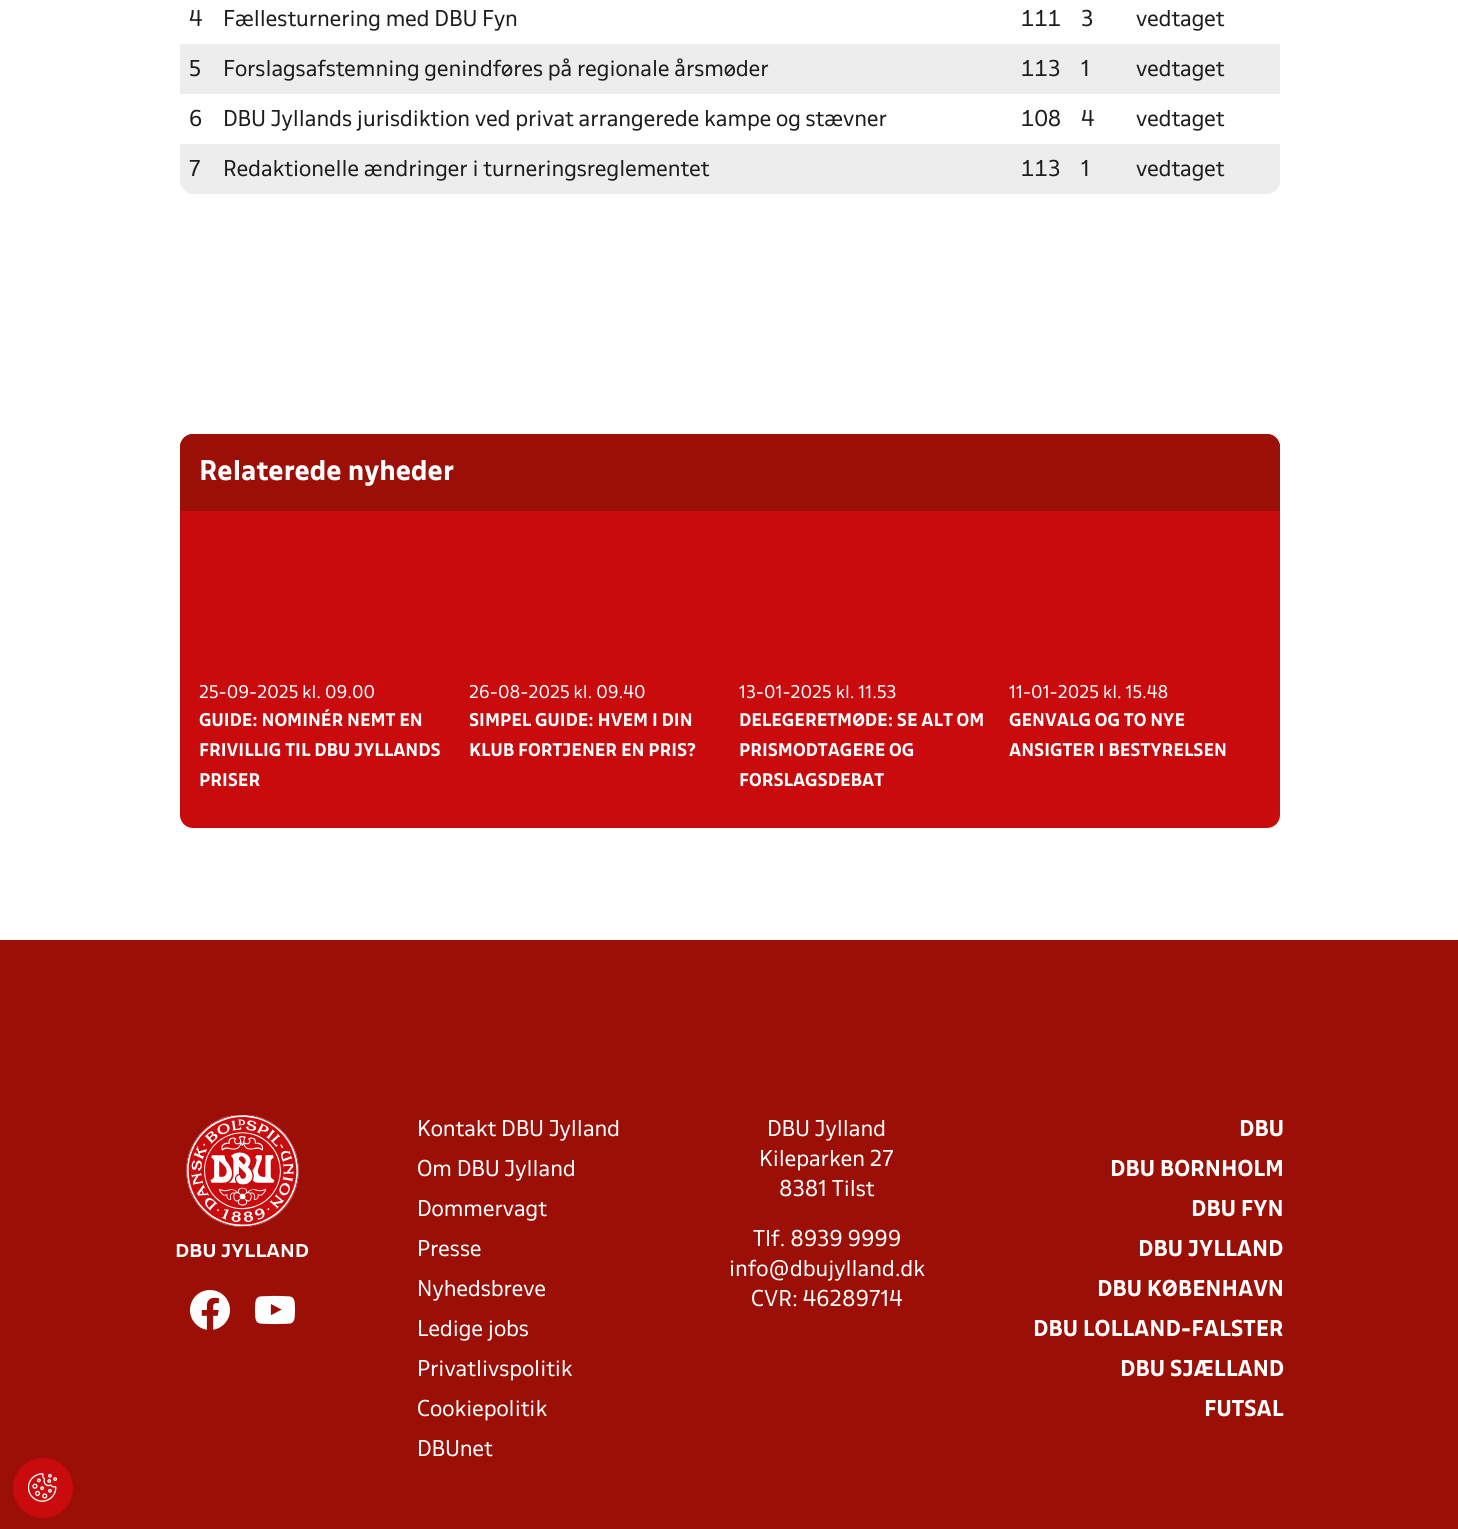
#include <cairo/cairo.h>
#include <math.h>
#include <stddef.h>

typedef struct { double x, y; const char *s; } line_t;
static cairo_t *cr;

static void rgb(unsigned color)
{
	cairo_set_source_rgb(cr, (color >> 16) / 255.0, (color >> 8 & 255) / 255.0, (color & 255) / 255.0);
}

static void rrect(double x, double y, double w, double h, double r)
{
	cairo_new_sub_path(cr);
	cairo_arc(cr, x + w - r, y + h - r, r, 0, M_PI / 2);
	cairo_arc(cr, x + r, y + h - r, r, M_PI / 2, M_PI);
	cairo_arc(cr, x + r, y + r, r, M_PI, 1.5 * M_PI);
	cairo_arc(cr, x + w - r, y + r, r, 1.5 * M_PI, 2 * M_PI);
	cairo_close_path(cr);
}

static void image(const char *path, double x, double y, double w, double h)
{
	cairo_surface_t *image = cairo_image_surface_create_from_png(path);
	cairo_save(cr);
	cairo_set_source_surface(cr, image, x, y);
	cairo_rectangle(cr, x, y, w, h);
	cairo_fill(cr);
	cairo_restore(cr);
	cairo_surface_destroy(image);
}

int main(void) {
	cairo_surface_t *surface = cairo_image_surface_create(CAIRO_FORMAT_RGB24, 1458, 1529);
	cr = cairo_create(surface);
	cairo_font_options_t *options = cairo_font_options_create();
	cairo_font_options_set_hint_metrics(options, CAIRO_HINT_METRICS_OFF);
	cairo_font_options_set_hint_style(options, CAIRO_HINT_STYLE_NONE);
	cairo_set_font_options(cr, options);
	cairo_set_miter_limit(cr, 4);
	rgb(0xffffff);
	cairo_paint(cr);
	rgb(0xededed);
	cairo_rectangle(cr, 180, 44, 1100, 50);
	cairo_fill(cr);
	cairo_new_path(cr);
	cairo_move_to(cr, 180, 144);
	cairo_line_to(cr, 1280, 144);
	cairo_line_to(cr, 1280, 181);
	cairo_curve_to(cr, 1280, 188, 1274, 194, 1267, 194);
	cairo_line_to(cr, 193, 194);
	cairo_curve_to(cr, 186, 194, 180, 188, 180, 181);
	cairo_close_path(cr);
	cairo_fill(cr);
	rgb(0xc90b0e);
	rrect(180, 434, 1100, 394, 13);
	cairo_fill(cr);
	rgb(0x9c0f06);
	cairo_new_path(cr);
	cairo_move_to(cr, 193, 434);
	cairo_line_to(cr, 1267, 434);
	cairo_curve_to(cr, 1274, 434, 1280, 440, 1280, 447);
	cairo_line_to(cr, 1280, 511);
	cairo_line_to(cr, 180, 511);
	cairo_line_to(cr, 180, 447);
	cairo_curve_to(cr, 180, 440, 186, 434, 193, 434);
	cairo_close_path(cr);
	cairo_fill(cr);
	cairo_rectangle(cr, 0, 940, 1458, 589);
	cairo_fill(cr);
	image("img/1.png", 186, 1115, 113, 112);
	image("img/2.png", 190, 1290, 40, 40);
	image("img/3.png", 255, 1295, 40, 30);
	rgb(0xc90b0e);
	cairo_arc(cr, 43, 1488, 30, 0, 2 * M_PI);
	cairo_fill(cr);
	image("img/4.png", 28, 1473, 30, 29);
	cairo_select_font_face(cr, "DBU", CAIRO_FONT_SLANT_NORMAL, CAIRO_FONT_WEIGHT_NORMAL);
	cairo_set_font_size(cr, 20);
	rgb(0x1d1d1d);
	cairo_move_to(cr, 189, 26);
	cairo_show_text(cr, "4");
	cairo_move_to(cr, 223, 26);
	cairo_show_text(cr, "Fællesturnering med DBU Fyn");
	cairo_select_font_face(cr, "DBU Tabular", CAIRO_FONT_SLANT_NORMAL, CAIRO_FONT_WEIGHT_NORMAL);
	cairo_move_to(cr, 1021, 26);
	cairo_show_text(cr, "111");
	cairo_select_font_face(cr, "DBU", CAIRO_FONT_SLANT_NORMAL, CAIRO_FONT_WEIGHT_NORMAL);
	{
		static const line_t items[] = {
			{1081, 26, "3"},
			{1136, 26, "vedtaget"},
			{189, 76, "5"},
			{223, 76, "Forslagsafstemning genindføres på regionale årsmøder"},
		};
		for (size_t i = 0; i < sizeof items / sizeof *items; i++) {
			cairo_move_to(cr, items[i].x, items[i].y);
			cairo_show_text(cr, items[i].s);
		}
	}
	cairo_select_font_face(cr, "DBU Tabular", CAIRO_FONT_SLANT_NORMAL, CAIRO_FONT_WEIGHT_NORMAL);
	cairo_move_to(cr, 1021, 76);
	cairo_show_text(cr, "113");
	cairo_select_font_face(cr, "DBU", CAIRO_FONT_SLANT_NORMAL, CAIRO_FONT_WEIGHT_NORMAL);
	{
		static const line_t items[] = {
			{1081, 76, "1"},
			{1136, 76, "vedtaget"},
			{189, 126, "6"},
			{223, 126, "DBU Jyllands jurisdiktion ved privat arrangerede kampe og stævner"},
		};
		for (size_t i = 0; i < sizeof items / sizeof *items; i++) {
			cairo_move_to(cr, items[i].x, items[i].y);
			cairo_show_text(cr, items[i].s);
		}
	}
	cairo_select_font_face(cr, "DBU Tabular", CAIRO_FONT_SLANT_NORMAL, CAIRO_FONT_WEIGHT_NORMAL);
	cairo_move_to(cr, 1021, 126);
	cairo_show_text(cr, "108");
	cairo_select_font_face(cr, "DBU", CAIRO_FONT_SLANT_NORMAL, CAIRO_FONT_WEIGHT_NORMAL);
	{
		static const line_t items[] = {
			{1081, 126, "4"},
			{1136, 126, "vedtaget"},
			{189, 176, "7"},
			{223, 176, "Redaktionelle ændringer i turneringsreglementet"},
		};
		for (size_t i = 0; i < sizeof items / sizeof *items; i++) {
			cairo_move_to(cr, items[i].x, items[i].y);
			cairo_show_text(cr, items[i].s);
		}
	}
	cairo_select_font_face(cr, "DBU Tabular", CAIRO_FONT_SLANT_NORMAL, CAIRO_FONT_WEIGHT_NORMAL);
	cairo_move_to(cr, 1021, 176);
	cairo_show_text(cr, "113");
	cairo_select_font_face(cr, "DBU", CAIRO_FONT_SLANT_NORMAL, CAIRO_FONT_WEIGHT_NORMAL);
	cairo_move_to(cr, 1081, 176);
	cairo_show_text(cr, "1");
	cairo_move_to(cr, 1136, 176);
	cairo_show_text(cr, "vedtaget");
	cairo_select_font_face(cr, "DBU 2", CAIRO_FONT_SLANT_NORMAL, CAIRO_FONT_WEIGHT_BOLD);
	cairo_set_font_size(cr, 25);
	rgb(0xffffff);
	cairo_move_to(cr, 199, 480);
	cairo_show_text(cr, "Relaterede nyheder");
	cairo_select_font_face(cr, "DBU", CAIRO_FONT_SLANT_NORMAL, CAIRO_FONT_WEIGHT_NORMAL);
	cairo_set_font_size(cr, 16);
	cairo_move_to(cr, 199, 698);
	cairo_show_text(cr, "25-09-2025 kl. 09.00");
	cairo_select_font_face(cr, "DBU 2", CAIRO_FONT_SLANT_NORMAL, CAIRO_FONT_WEIGHT_BOLD);
	{
		static const line_t items[] = {
			{199, 726, "GUIDE: NOMINÉR NEMT EN"},
			{199, 756, "FRIVILLIG TIL DBU JYLLANDS"},
			{199, 786, "PRISER"},
		};
		for (size_t i = 0; i < sizeof items / sizeof *items; i++) {
			cairo_move_to(cr, items[i].x, items[i].y);
			cairo_show_text(cr, items[i].s);
		}
	}
	cairo_select_font_face(cr, "DBU", CAIRO_FONT_SLANT_NORMAL, CAIRO_FONT_WEIGHT_NORMAL);
	cairo_move_to(cr, 469, 698);
	cairo_show_text(cr, "26-08-2025 kl. 09.40");
	cairo_select_font_face(cr, "DBU 2", CAIRO_FONT_SLANT_NORMAL, CAIRO_FONT_WEIGHT_BOLD);
	cairo_move_to(cr, 469, 726);
	cairo_show_text(cr, "SIMPEL GUIDE: HVEM I DIN");
	cairo_move_to(cr, 469, 756);
	cairo_show_text(cr, "KLUB FORTJENER EN PRIS?");
	cairo_select_font_face(cr, "DBU", CAIRO_FONT_SLANT_NORMAL, CAIRO_FONT_WEIGHT_NORMAL);
	cairo_move_to(cr, 739, 698);
	cairo_show_text(cr, "13-01-2025 kl. 11.53");
	cairo_select_font_face(cr, "DBU 2", CAIRO_FONT_SLANT_NORMAL, CAIRO_FONT_WEIGHT_BOLD);
	{
		static const line_t items[] = {
			{739, 726, "DELEGERETMØDE: SE ALT OM"},
			{739, 756, "PRISMODTAGERE OG"},
			{739, 786, "FORSLAGSDEBAT"},
		};
		for (size_t i = 0; i < sizeof items / sizeof *items; i++) {
			cairo_move_to(cr, items[i].x, items[i].y);
			cairo_show_text(cr, items[i].s);
		}
	}
	cairo_select_font_face(cr, "DBU", CAIRO_FONT_SLANT_NORMAL, CAIRO_FONT_WEIGHT_NORMAL);
	cairo_move_to(cr, 1009, 698);
	cairo_show_text(cr, "11-01-2025 kl. 15.48");
	cairo_select_font_face(cr, "DBU 2", CAIRO_FONT_SLANT_NORMAL, CAIRO_FONT_WEIGHT_BOLD);
	cairo_move_to(cr, 1009, 726);
	cairo_show_text(cr, "GENVALG OG TO NYE");
	cairo_move_to(cr, 1009, 756);
	cairo_show_text(cr, "ANSIGTER I BESTYRELSEN");
	cairo_select_font_face(cr, "DBU", CAIRO_FONT_SLANT_NORMAL, CAIRO_FONT_WEIGHT_BOLD);
	cairo_set_font_size(cr, 16.25);
	cairo_move_to(cr, 175, 1257);
	cairo_show_text(cr, "DBU JYLLAND");
	cairo_select_font_face(cr, "DBU", CAIRO_FONT_SLANT_NORMAL, CAIRO_FONT_WEIGHT_NORMAL);
	cairo_set_font_size(cr, 20);
	{
		static const line_t items[] = {
			{417, 1136, "Kontakt DBU Jylland"},
			{417, 1176, "Om DBU Jylland"},
			{417, 1216, "Dommervagt"},
			{417, 1256, "Presse"},
			{417, 1296, "Nyhedsbreve"},
			{417, 1336, "Ledige jobs"},
			{417, 1376, "Privatlivspolitik"},
			{417, 1416, "Cookiepolitik"},
			{417, 1456, "DBUnet"},
			{767, 1136, "DBU Jylland"},
			{759, 1166, "Kileparken 27"},
			{779, 1196, "8381 Tilst"},
			{753, 1246, "Tlf. 8939 9999"},
			{729, 1276, "info@dbujylland.dk"},
			{751, 1306, "CVR: 46289714"},
		};
		for (size_t i = 0; i < sizeof items / sizeof *items; i++) {
			cairo_move_to(cr, items[i].x, items[i].y);
			cairo_show_text(cr, items[i].s);
		}
	}
	cairo_select_font_face(cr, "DBU 2", CAIRO_FONT_SLANT_NORMAL, CAIRO_FONT_WEIGHT_BOLD);
	{
		static const line_t items[] = {
			{1239, 1136, "DBU"},
			{1110, 1176, "DBU BORNHOLM"},
			{1191, 1216, "DBU FYN"},
			{1138, 1256, "DBU JYLLAND"},
			{1097, 1296, "DBU KØBENHAVN"},
			{1033, 1336, "DBU LOLLAND-FALSTER"},
			{1120, 1376, "DBU SJÆLLAND"},
			{1204, 1416, "FUTSAL"},
		};
		for (size_t i = 0; i < sizeof items / sizeof *items; i++) {
			cairo_move_to(cr, items[i].x, items[i].y);
			cairo_show_text(cr, items[i].s);
		}
	}
	cairo_surface_write_to_png(surface, "page.png");
	cairo_font_options_destroy(options);
	cairo_destroy(cr);
	cairo_surface_destroy(surface);
	return 0;
}
